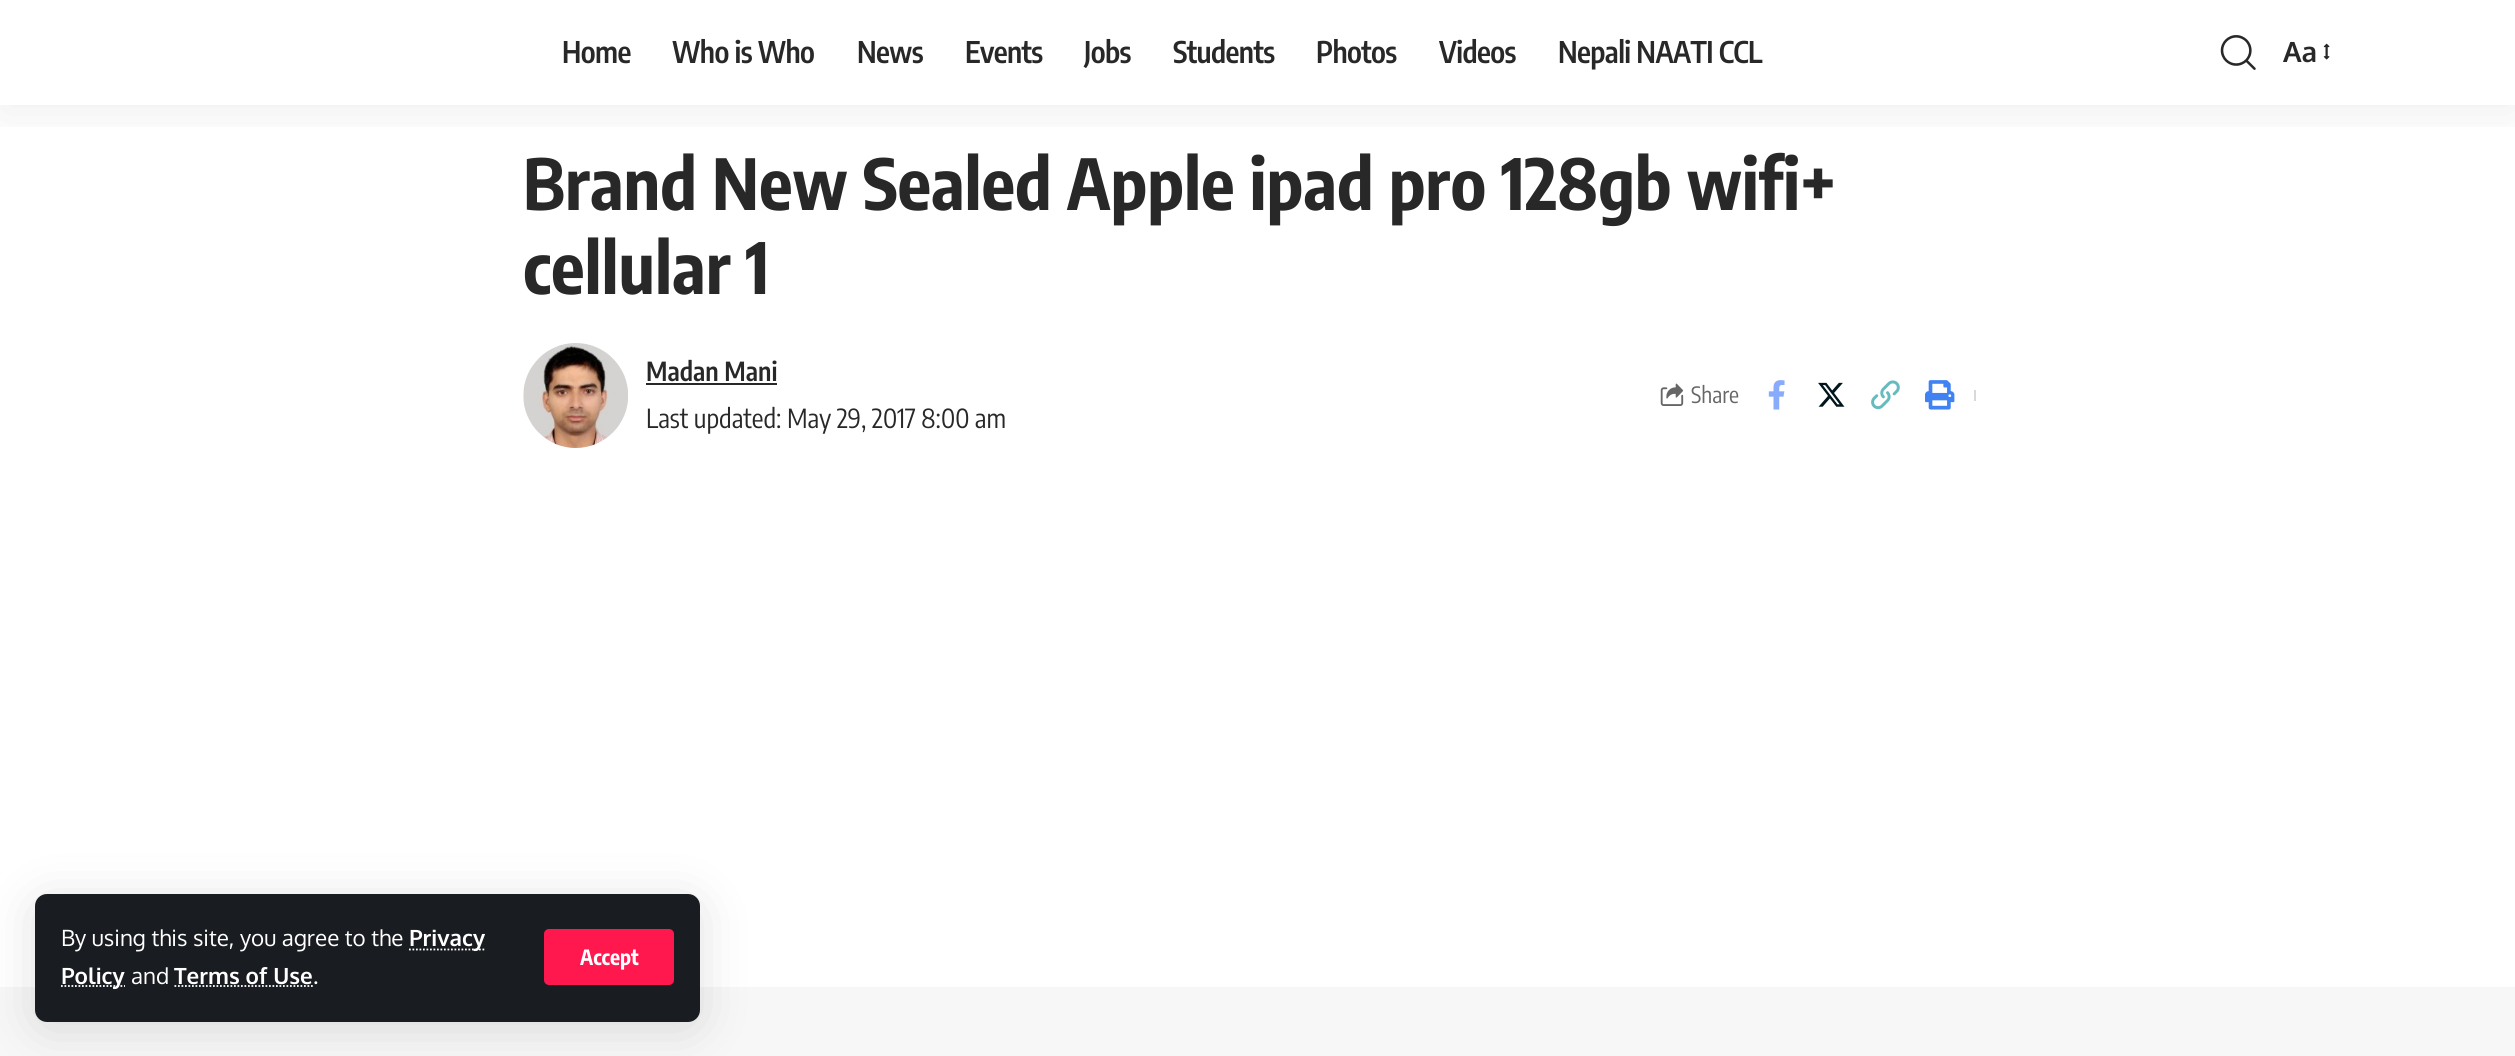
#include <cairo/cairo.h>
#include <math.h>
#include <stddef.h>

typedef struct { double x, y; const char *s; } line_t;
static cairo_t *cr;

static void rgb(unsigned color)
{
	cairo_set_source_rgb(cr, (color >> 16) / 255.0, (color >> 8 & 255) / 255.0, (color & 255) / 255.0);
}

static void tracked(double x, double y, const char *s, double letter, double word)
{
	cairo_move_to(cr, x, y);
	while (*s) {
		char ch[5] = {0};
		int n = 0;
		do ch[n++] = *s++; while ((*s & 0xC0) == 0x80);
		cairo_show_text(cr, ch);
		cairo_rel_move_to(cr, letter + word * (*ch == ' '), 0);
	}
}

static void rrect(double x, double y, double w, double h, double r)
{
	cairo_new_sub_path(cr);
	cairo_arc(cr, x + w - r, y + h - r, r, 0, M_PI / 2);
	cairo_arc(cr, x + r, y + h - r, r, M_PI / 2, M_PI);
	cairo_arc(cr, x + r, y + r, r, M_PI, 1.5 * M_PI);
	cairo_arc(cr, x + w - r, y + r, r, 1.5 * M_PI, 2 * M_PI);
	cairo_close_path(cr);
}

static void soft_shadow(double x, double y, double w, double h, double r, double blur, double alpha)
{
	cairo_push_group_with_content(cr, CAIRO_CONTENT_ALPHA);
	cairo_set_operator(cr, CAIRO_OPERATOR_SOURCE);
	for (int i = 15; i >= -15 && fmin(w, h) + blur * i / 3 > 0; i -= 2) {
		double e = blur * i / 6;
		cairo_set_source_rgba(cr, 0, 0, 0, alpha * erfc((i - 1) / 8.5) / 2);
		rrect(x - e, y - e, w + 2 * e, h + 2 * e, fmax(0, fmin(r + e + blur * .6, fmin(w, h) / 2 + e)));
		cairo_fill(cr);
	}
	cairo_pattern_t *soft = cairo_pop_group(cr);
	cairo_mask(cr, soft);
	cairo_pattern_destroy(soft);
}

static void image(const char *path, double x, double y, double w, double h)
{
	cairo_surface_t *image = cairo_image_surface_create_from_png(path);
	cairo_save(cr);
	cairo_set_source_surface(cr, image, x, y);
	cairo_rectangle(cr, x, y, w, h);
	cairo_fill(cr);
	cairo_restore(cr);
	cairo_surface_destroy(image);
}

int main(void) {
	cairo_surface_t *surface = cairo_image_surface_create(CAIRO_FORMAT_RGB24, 2515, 1056);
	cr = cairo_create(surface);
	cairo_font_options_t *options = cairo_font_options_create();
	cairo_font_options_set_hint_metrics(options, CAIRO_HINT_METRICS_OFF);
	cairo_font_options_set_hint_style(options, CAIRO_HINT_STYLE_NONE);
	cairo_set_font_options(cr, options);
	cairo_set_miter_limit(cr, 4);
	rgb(0xffffff);
	cairo_paint(cr);
	cairo_save(cr);
	cairo_rectangle(cr, 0, 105, 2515, 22);
	cairo_clip(cr);
	rgb(0x000000);
	soft_shadow(0, 7, 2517, 105, 0, 26, 0.07);
	cairo_restore(cr);
	image("img/1.png", 2220, 35, 36, 35);
	image("img/2.png", 2323, 43, 7, 17);
	rgb(0xf7f7f7);
	cairo_rectangle(cr, 0, 987, 2515, 69);
	cairo_fill(cr);
	rgb(0x000000);
	soft_shadow(35, 901, 665, 128, 12, 26, 0.12);
	rgb(0x191c20);
	rrect(35, 894, 665, 128, 12);
	cairo_fill(cr);
	cairo_new_path(cr);
	cairo_move_to(cr, 409, 949.5);
	cairo_line_to(cr, 485.5, 949.5);
	rgb(0xffffff);
	cairo_set_line_width(cr, 1.8);
	cairo_set_dash(cr, (double[]){1.75, 1.75}, 2, 0);
	cairo_stroke(cr);
	cairo_new_path(cr);
	cairo_move_to(cr, 61, 986);
	cairo_line_to(cr, 125, 986);
	cairo_stroke(cr);
	cairo_new_path(cr);
	cairo_move_to(cr, 174.5, 986);
	cairo_line_to(cr, 313, 986);
	cairo_stroke(cr);
	rgb(0xff184e);
	rrect(544, 929, 130, 56, 5);
	cairo_fill(cr);
	image("img/3.png", 523, 343, 105, 105);
	rgb(0x282828);
	cairo_rectangle(cr, 646, 383, 131, 2);
	cairo_fill(cr);
	image("img/4.png", 1660, 383, 24, 23);
	image("img/5.png", 1768, 380, 17, 30);
	image("img/6.png", 1818, 382, 27, 25);
	image("img/7.png", 1871, 380, 29, 30);
	image("img/8.png", 1925, 380, 30, 30);
	rgb(0xd9d9d9);
	cairo_rectangle(cr, 1974, 390, 2, 11);
	cairo_fill(cr);
	cairo_select_font_face(cr, "Encode Sans Condensed SemiBold", CAIRO_FONT_SLANT_NORMAL, CAIRO_FONT_WEIGHT_NORMAL);
	cairo_set_font_size(cr, 29.75);
	rgb(0x282828);
	{
		static const line_t items[] = {
			{562, 63, "Home"},
			{672, 63, "Who is Who"},
			{857, 63, "News"},
			{965, 63, "Events"},
			{1084, 63, "Jobs"},
			{1173, 63, "Students"},
			{1316, 63, "Photos"},
			{1439, 63, "Videos"},
			{1558, 63, "Nepali NAATI CCL"},
		};
		for (size_t i = 0; i < sizeof items / sizeof *items; i++) {
			tracked(items[i].x, items[i].y, items[i].s, -0.6, 0);
		}
	}
	cairo_select_font_face(cr, "Oxygen", CAIRO_FONT_SLANT_NORMAL, CAIRO_FONT_WEIGHT_BOLD);
	cairo_set_font_size(cr, 28);
	cairo_move_to(cr, 2283, 62);
	cairo_show_text(cr, "Aa");
	cairo_select_font_face(cr, "Oxygen", CAIRO_FONT_SLANT_NORMAL, CAIRO_FONT_WEIGHT_NORMAL);
	cairo_set_font_size(cr, 22.4);
	rgb(0xffffff);
	cairo_move_to(cr, 61, 946);
	cairo_show_text(cr, "By using this site, you agree to the");
	cairo_select_font_face(cr, "Oxygen", CAIRO_FONT_SLANT_NORMAL, CAIRO_FONT_WEIGHT_BOLD);
	cairo_move_to(cr, 409, 946);
	cairo_show_text(cr, "Privacy");
	cairo_move_to(cr, 61, 984);
	cairo_show_text(cr, "Policy");
	cairo_select_font_face(cr, "Oxygen", CAIRO_FONT_SLANT_NORMAL, CAIRO_FONT_WEIGHT_NORMAL);
	cairo_move_to(cr, 131, 984);
	cairo_show_text(cr, "and");
	cairo_select_font_face(cr, "Oxygen", CAIRO_FONT_SLANT_NORMAL, CAIRO_FONT_WEIGHT_BOLD);
	cairo_move_to(cr, 174, 984);
	cairo_show_text(cr, "Terms of Use");
	cairo_select_font_face(cr, "Oxygen", CAIRO_FONT_SLANT_NORMAL, CAIRO_FONT_WEIGHT_NORMAL);
	cairo_move_to(cr, 313, 984);
	cairo_show_text(cr, ".");
	cairo_select_font_face(cr, "Encode Sans Condensed", CAIRO_FONT_SLANT_NORMAL, CAIRO_FONT_WEIGHT_BOLD);
	cairo_set_font_size(cr, 21);
	cairo_move_to(cr, 580, 965);
	cairo_show_text(cr, "Accept");
	cairo_set_font_size(cr, 70);
	rgb(0x282828);
	cairo_move_to(cr, 523, 210);
	cairo_show_text(cr, "Brand New Sealed Apple ipad pro 128gb wifi+");
	cairo_move_to(cr, 523, 294);
	cairo_show_text(cr, "cellular 1");
	cairo_select_font_face(cr, "Encode Sans Condensed SemiBold", CAIRO_FONT_SLANT_NORMAL, CAIRO_FONT_WEIGHT_NORMAL);
	cairo_set_font_size(cr, 26.2);
	cairo_move_to(cr, 646, 381);
	cairo_show_text(cr, "Madan Mani");
	cairo_select_font_face(cr, "Encode Sans Condensed", CAIRO_FONT_SLANT_NORMAL, CAIRO_FONT_WEIGHT_NORMAL);
	cairo_move_to(cr, 646, 428);
	cairo_show_text(cr, "Last updated: May 29, 2017 8:00 am");
	cairo_set_font_size(cr, 22.4);
	rgb(0x666666);
	cairo_move_to(cr, 1691, 403);
	cairo_show_text(cr, "Share");
	cairo_surface_write_to_png(surface, "page.png");
	cairo_font_options_destroy(options);
	cairo_destroy(cr);
	cairo_surface_destroy(surface);
	return 0;
}
